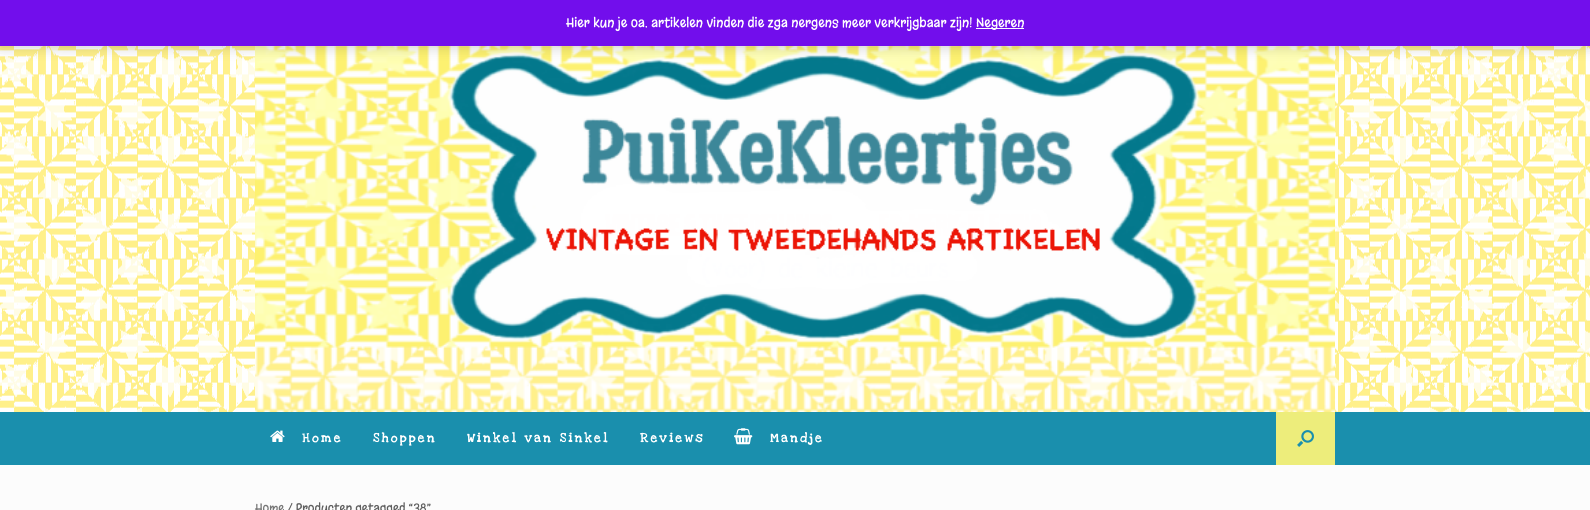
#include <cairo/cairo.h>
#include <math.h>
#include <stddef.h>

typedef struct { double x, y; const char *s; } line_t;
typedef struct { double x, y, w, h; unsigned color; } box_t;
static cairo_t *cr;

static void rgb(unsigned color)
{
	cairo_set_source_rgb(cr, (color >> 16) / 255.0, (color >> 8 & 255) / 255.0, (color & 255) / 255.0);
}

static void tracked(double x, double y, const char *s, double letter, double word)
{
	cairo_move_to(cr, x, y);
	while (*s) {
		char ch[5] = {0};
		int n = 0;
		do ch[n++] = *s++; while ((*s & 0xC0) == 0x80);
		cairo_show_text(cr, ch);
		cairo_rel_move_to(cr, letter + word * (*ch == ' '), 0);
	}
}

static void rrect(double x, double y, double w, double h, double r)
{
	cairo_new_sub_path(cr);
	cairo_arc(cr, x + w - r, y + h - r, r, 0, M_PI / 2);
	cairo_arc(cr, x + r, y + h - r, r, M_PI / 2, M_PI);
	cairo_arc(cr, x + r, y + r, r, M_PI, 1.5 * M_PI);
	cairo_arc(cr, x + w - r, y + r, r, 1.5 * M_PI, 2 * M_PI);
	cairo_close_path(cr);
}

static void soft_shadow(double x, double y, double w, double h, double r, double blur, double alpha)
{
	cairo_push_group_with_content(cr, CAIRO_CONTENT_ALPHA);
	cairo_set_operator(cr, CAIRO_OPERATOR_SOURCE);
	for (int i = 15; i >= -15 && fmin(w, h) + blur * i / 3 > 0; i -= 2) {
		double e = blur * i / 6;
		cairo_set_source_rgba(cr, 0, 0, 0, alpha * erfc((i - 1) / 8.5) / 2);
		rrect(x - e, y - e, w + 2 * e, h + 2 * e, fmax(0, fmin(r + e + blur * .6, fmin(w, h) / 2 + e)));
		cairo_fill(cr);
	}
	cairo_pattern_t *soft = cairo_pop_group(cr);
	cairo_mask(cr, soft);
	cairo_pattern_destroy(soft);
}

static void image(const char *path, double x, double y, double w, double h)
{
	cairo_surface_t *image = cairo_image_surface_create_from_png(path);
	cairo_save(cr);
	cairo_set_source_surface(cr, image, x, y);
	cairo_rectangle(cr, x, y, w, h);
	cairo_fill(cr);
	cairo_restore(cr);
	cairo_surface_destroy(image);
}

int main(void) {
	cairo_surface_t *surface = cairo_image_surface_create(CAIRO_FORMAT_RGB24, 1590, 510);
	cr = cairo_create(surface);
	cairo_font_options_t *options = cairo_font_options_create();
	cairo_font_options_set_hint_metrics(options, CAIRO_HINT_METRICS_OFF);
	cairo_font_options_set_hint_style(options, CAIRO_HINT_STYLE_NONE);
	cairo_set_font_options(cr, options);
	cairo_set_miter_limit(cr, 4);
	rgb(0xffffff);
	cairo_paint(cr);
	image("img/1.png", 0, 46, 1590, 366);
	image("img/2.png", 255, 46, 1080, 366);
	rgb(0x000000);
	soft_shadow(0, 1, 1590, 46, 0, 6.5, 0.2);
	{
		static const box_t items[] = {
			{0, 0, 1590, 46, 0x720eec},
			{976, 28, 48, 1, 0xfcfbfe},
			{0, 412, 1590, 53, 0x1a8fad},
		};
		for (size_t i = 0; i < sizeof items / sizeof *items; i++) {
			rgb(items[i].color);
			cairo_rectangle(cr, items[i].x, items[i].y, items[i].w, items[i].h);
			cairo_fill(cr);
		}
	}
	image("img/3.png", 270, 430, 15, 12);
	image("img/4.png", 734, 428, 19, 17);
	rgb(0xeded7b);
	cairo_rectangle(cr, 1276, 412, 59, 53);
	cairo_fill(cr);
	image("img/5.png", 1297, 430, 17, 17);
	rgb(0xfcfcfc);
	cairo_rectangle(cr, 0, 465, 1590, 45);
	cairo_fill(cr);
	cairo_select_font_face(cr, "Margarine", CAIRO_FONT_SLANT_NORMAL, CAIRO_FONT_WEIGHT_NORMAL);
	cairo_set_font_size(cr, 13);
	rgb(0xffffff);
	cairo_move_to(cr, 566, 27);
	cairo_show_text(cr, "Hier kun je oa. artikelen vinden die zga nergens meer verkrijgbaar zijn!");
	cairo_move_to(cr, 976, 27);
	cairo_show_text(cr, "Negeren");
	cairo_select_font_face(cr, "Love Ya Like A Sister", CAIRO_FONT_SLANT_NORMAL, CAIRO_FONT_WEIGHT_BOLD);
	{
		static const line_t items[] = {
			{302, 442, "Home"},
			{373, 442, "Shoppen"},
			{467, 442, "Winkel van Sinkel"},
			{640, 442, "Reviews"},
			{770, 442, "Mandje"},
		};
		for (size_t i = 0; i < sizeof items / sizeof *items; i++) {
			tracked(items[i].x, items[i].y, items[i].s, 2.5, 0);
		}
	}
	cairo_select_font_face(cr, "Margarine", CAIRO_FONT_SLANT_NORMAL, CAIRO_FONT_WEIGHT_NORMAL);
	cairo_set_font_size(cr, 12);
	rgb(0x767676);
	cairo_move_to(cr, 255, 512);
	cairo_show_text(cr, "Home");
	rgb(0x5e5e5e);
	cairo_move_to(cr, 287, 512);
	cairo_show_text(cr, "/ Producten getagged “38”");
	cairo_surface_write_to_png(surface, "page.png");
	cairo_font_options_destroy(options);
	cairo_destroy(cr);
	cairo_surface_destroy(surface);
	return 0;
}
